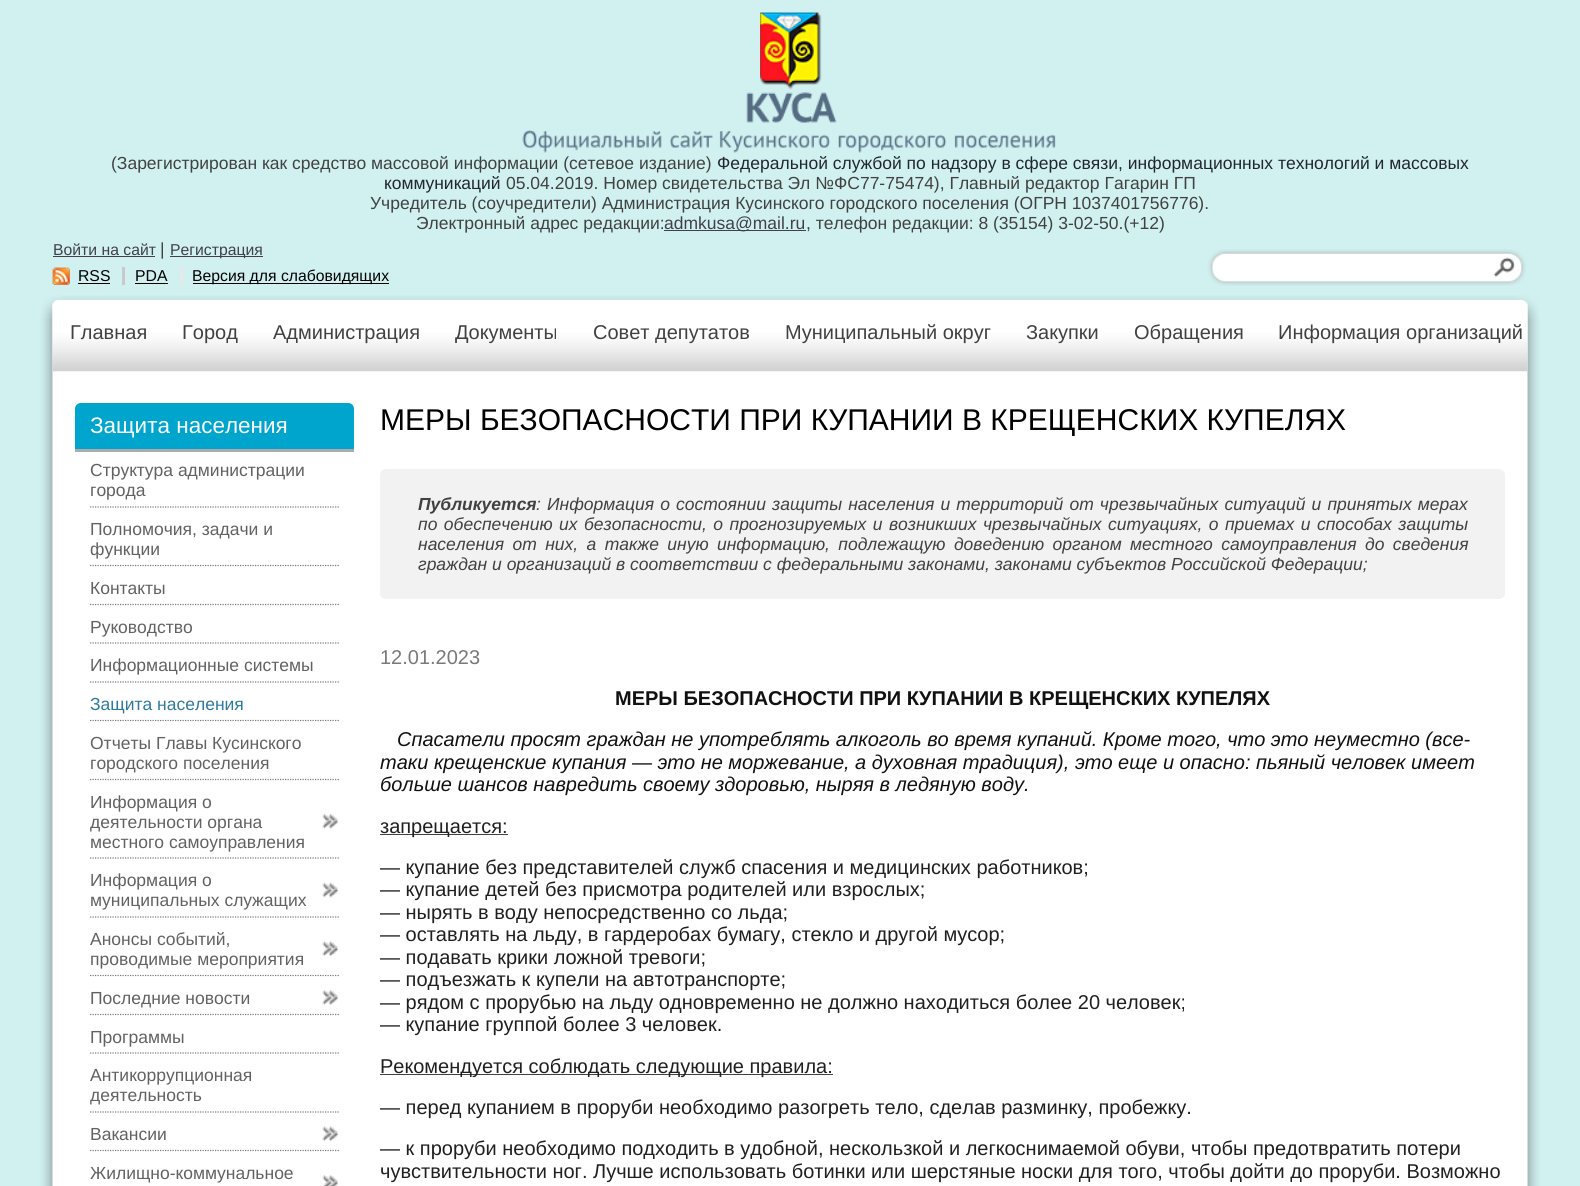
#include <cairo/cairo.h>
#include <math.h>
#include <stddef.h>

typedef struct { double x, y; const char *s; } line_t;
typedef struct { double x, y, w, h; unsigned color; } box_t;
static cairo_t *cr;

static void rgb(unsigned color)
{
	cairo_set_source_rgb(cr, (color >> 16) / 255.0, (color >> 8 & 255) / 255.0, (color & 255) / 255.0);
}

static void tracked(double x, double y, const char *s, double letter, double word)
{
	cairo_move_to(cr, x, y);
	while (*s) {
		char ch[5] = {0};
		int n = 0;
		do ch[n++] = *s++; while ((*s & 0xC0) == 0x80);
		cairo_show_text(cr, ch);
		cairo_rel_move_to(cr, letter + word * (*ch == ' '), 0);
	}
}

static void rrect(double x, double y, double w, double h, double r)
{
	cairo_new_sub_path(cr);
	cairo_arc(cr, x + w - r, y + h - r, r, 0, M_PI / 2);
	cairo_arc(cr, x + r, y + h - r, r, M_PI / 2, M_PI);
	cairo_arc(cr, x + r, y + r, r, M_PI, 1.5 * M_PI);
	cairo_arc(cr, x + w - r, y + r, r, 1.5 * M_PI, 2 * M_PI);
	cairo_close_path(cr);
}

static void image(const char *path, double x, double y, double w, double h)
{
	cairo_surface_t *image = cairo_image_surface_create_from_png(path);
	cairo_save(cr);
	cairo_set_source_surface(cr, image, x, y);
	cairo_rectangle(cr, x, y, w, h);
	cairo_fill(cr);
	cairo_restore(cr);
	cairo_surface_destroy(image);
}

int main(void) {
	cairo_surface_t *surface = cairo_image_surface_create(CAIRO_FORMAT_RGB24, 1580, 1186);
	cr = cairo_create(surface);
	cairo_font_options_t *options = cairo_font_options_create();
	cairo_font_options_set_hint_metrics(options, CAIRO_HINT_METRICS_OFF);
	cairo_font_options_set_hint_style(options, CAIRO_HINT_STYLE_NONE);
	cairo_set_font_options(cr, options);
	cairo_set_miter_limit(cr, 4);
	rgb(0xd1f1f1);
	cairo_paint(cr);
	image("img/1.png", 760, 12, 62, 78);
	image("img/2.png", 746, 92, 91, 31);
	image("img/3.png", 522, 130, 140, 23);
	image("img/4.png", 670, 131, 43, 17);
	image("img/5.png", 719, 131, 112, 22);
	image("img/6.png", 838, 134, 109, 19);
	image("img/7.png", 954, 134, 102, 14);
	{
		static const box_t items[] = {
			{664, 230, 142, 1, 0x433f4a},
			{53, 256, 102, 1, 0x433f4a},
			{170, 256, 93, 1, 0x433f4a},
		};
		for (size_t i = 0; i < sizeof items / sizeof *items; i++) {
			rgb(items[i].color);
			cairo_rectangle(cr, items[i].x, items[i].y, items[i].w, items[i].h);
			cairo_fill(cr);
		}
	}
	image("img/8.png", 1207, 249, 319, 37);
	image("img/9.png", 52, 267, 18, 18);
	{
		static const box_t items[] = {
			{78, 283, 32, 1, 0x000000},
			{122, 267, 3, 18, 0xc9c9c9},
			{135, 283, 33, 1, 0x000000},
			{180, 267, 3, 18, 0xe8e8e8},
			{193, 283, 196, 1, 0x000000},
		};
		for (size_t i = 0; i < sizeof items / sizeof *items; i++) {
			rgb(items[i].color);
			cairo_rectangle(cr, items[i].x, items[i].y, items[i].w, items[i].h);
			cairo_fill(cr);
		}
	}
	image("img/10.png", 40, 318, 1500, 868);
	image("img/11.png", 41, 295, 1498, 24);
	image("img/12.png", 52, 300, 1476, 72);
	rgb(0x00a5ce);
	cairo_new_path(cr);
	cairo_move_to(cr, 81, 403);
	cairo_line_to(cr, 348, 403);
	cairo_curve_to(cr, 351.5, 403, 354, 405.5, 354, 409);
	cairo_line_to(cr, 354, 451);
	cairo_line_to(cr, 75, 451);
	cairo_line_to(cr, 75, 409);
	cairo_curve_to(cr, 75, 405.5, 77.5, 403, 81, 403);
	cairo_close_path(cr);
	cairo_fill(cr);
	rgb(0xababab);
	cairo_rectangle(cr, 75, 449, 279, 3);
	cairo_fill(cr);
	cairo_new_path(cr);
	cairo_move_to(cr, 90, 507);
	cairo_line_to(cr, 339, 507);
	rgb(0x797979);
	cairo_set_line_width(cr, 1.2);
	cairo_set_dash(cr, (double[]){1.25, 1.25}, 2, 0);
	cairo_stroke(cr);
	cairo_new_path(cr);
	cairo_move_to(cr, 90, 565.5);
	cairo_line_to(cr, 339, 565.5);
	cairo_stroke(cr);
	cairo_new_path(cr);
	cairo_move_to(cr, 90, 604.5);
	cairo_line_to(cr, 339, 604.5);
	cairo_stroke(cr);
	cairo_new_path(cr);
	cairo_move_to(cr, 90, 643);
	cairo_line_to(cr, 339, 643);
	cairo_stroke(cr);
	cairo_new_path(cr);
	cairo_move_to(cr, 90, 682);
	cairo_line_to(cr, 339, 682);
	cairo_stroke(cr);
	cairo_new_path(cr);
	cairo_move_to(cr, 90, 720.5);
	cairo_line_to(cr, 339, 720.5);
	cairo_stroke(cr);
	cairo_new_path(cr);
	cairo_move_to(cr, 90, 779.5);
	cairo_line_to(cr, 339, 779.5);
	cairo_stroke(cr);
	cairo_new_path(cr);
	cairo_move_to(cr, 90, 858);
	cairo_line_to(cr, 339, 858);
	cairo_stroke(cr);
	image("img/13.png", 322, 813, 16, 16);
	cairo_new_path(cr);
	cairo_move_to(cr, 90, 917);
	cairo_line_to(cr, 339, 917);
	cairo_stroke(cr);
	image("img/14.png", 322, 882, 17, 16);
	cairo_new_path(cr);
	cairo_move_to(cr, 90, 975.5);
	cairo_line_to(cr, 339, 975.5);
	cairo_stroke(cr);
	image("img/15.png", 322, 941, 17, 16);
	cairo_new_path(cr);
	cairo_move_to(cr, 90, 1014.5);
	cairo_line_to(cr, 339, 1014.5);
	cairo_stroke(cr);
	image("img/16.png", 322, 990, 16, 15);
	cairo_new_path(cr);
	cairo_move_to(cr, 90, 1053);
	cairo_line_to(cr, 339, 1053);
	cairo_stroke(cr);
	cairo_new_path(cr);
	cairo_move_to(cr, 90, 1112);
	cairo_line_to(cr, 339, 1112);
	cairo_stroke(cr);
	cairo_new_path(cr);
	cairo_move_to(cr, 90, 1150.5);
	cairo_line_to(cr, 339, 1150.5);
	cairo_stroke(cr);
	image("img/15.png", 322, 1126, 17, 16);
	image("img/17.png", 322, 1175, 16, 11);
	rgb(0xf2f2f2);
	rrect(380, 469, 1125, 130, 6);
	cairo_fill(cr);
	rgb(0x414141);
	cairo_rectangle(cr, 380, 834, 128, 1);
	cairo_fill(cr);
	cairo_rectangle(cr, 380, 1074, 453, 1);
	cairo_fill(cr);
	cairo_select_font_face(cr, "Liberation Sans", CAIRO_FONT_SLANT_NORMAL, CAIRO_FONT_WEIGHT_NORMAL);
	cairo_set_font_size(cr, 17.5);
	cairo_move_to(cr, 111, 169);
	cairo_show_text(cr, "(Зарегистрирован как средство массовой информации (сетевое издание)");
	rgb(0x22272f);
	cairo_move_to(cr, 717, 169);
	cairo_show_text(cr, "Федеральной службой по надзору в сфере связи, информационных технологий и массовых");
	cairo_move_to(cr, 384, 189);
	cairo_show_text(cr, "коммуникаций");
	rgb(0x414141);
	{
		static const line_t items[] = {
			{506, 189, "05.04.2019. Номер свидетельства Эл №ФС77-75474), Главный редактор Гагарин ГП"},
			{370, 209, "Учредитель (соучредители) Администрация Кусинского городского поселения (ОГРН 1037401756776)."},
			{416, 229, "Электронный адрес редакции:"},
		};
		for (size_t i = 0; i < sizeof items / sizeof *items; i++) {
			cairo_move_to(cr, items[i].x, items[i].y);
			cairo_show_text(cr, items[i].s);
		}
	}
	rgb(0x433f4a);
	cairo_move_to(cr, 664, 229);
	cairo_show_text(cr, "admkusa@mail.ru");
	rgb(0x414141);
	cairo_move_to(cr, 806, 229);
	cairo_show_text(cr, ", телефон редакции: 8 (35154) 3-02-50.(+12)");
	cairo_set_font_size(cr, 15.75);
	rgb(0x433f4a);
	cairo_move_to(cr, 53, 255);
	cairo_show_text(cr, "Войти на сайт");
	cairo_set_font_size(cr, 17.5);
	rgb(0x414141);
	cairo_move_to(cr, 160, 255);
	cairo_show_text(cr, "|");
	cairo_set_font_size(cr, 15.75);
	rgb(0x433f4a);
	cairo_move_to(cr, 170, 255);
	cairo_show_text(cr, "Регистрация");
	rgb(0x000000);
	{
		static const line_t items[] = {
			{78, 281, "RSS"},
			{135, 281, "PDA"},
			{192, 281, "Версия для слабовидящих"},
		};
		for (size_t i = 0; i < sizeof items / sizeof *items; i++) {
			cairo_move_to(cr, items[i].x, items[i].y);
			cairo_show_text(cr, items[i].s);
		}
	}
	cairo_set_font_size(cr, 20);
	rgb(0x414141);
	{
		static const line_t items[] = {
			{70, 339, "Главная"},
			{182, 339, "Город"},
			{273, 339, "Администрация"},
			{455, 339, "Документы"},
			{593, 339, "Совет депутатов"},
			{785, 339, "Муниципальный округ"},
			{1026, 339, "Закупки"},
			{1134, 339, "Обращения"},
			{1278, 339, "Информация организаций"},
		};
		for (size_t i = 0; i < sizeof items / sizeof *items; i++) {
			cairo_move_to(cr, items[i].x, items[i].y);
			cairo_show_text(cr, items[i].s);
		}
	}
	cairo_set_font_size(cr, 22.5);
	rgb(0xfcfcfc);
	cairo_move_to(cr, 90, 433);
	cairo_show_text(cr, "Защита населения");
	cairo_set_font_size(cr, 17.5);
	rgb(0x626262);
	{
		static const line_t items[] = {
			{90, 476, "Структура администрации"},
			{90, 496, "города"},
			{90, 535, "Полномочия, задачи и"},
			{90, 555, "функции"},
			{90, 594, "Контакты"},
			{90, 633, "Руководство"},
			{90, 671, "Информационные системы"},
		};
		for (size_t i = 0; i < sizeof items / sizeof *items; i++) {
			cairo_move_to(cr, items[i].x, items[i].y);
			cairo_show_text(cr, items[i].s);
		}
	}
	rgb(0x2e799d);
	cairo_move_to(cr, 90, 710);
	cairo_show_text(cr, "Защита населения");
	rgb(0x626262);
	{
		static const line_t items[] = {
			{90, 749, "Отчеты Главы Кусинского"},
			{90, 769, "городского поселения"},
			{90, 808, "Информация о"},
			{90, 828, "деятельности органа"},
			{90, 848, "местного самоуправления"},
			{90, 886, "Информация о"},
			{90, 906, "муниципальных служащих"},
			{90, 945, "Анонсы событий,"},
			{90, 965, "проводимые мероприятия"},
			{90, 1004, "Последние новости"},
			{90, 1043, "Программы"},
			{90, 1081, "Антикоррупционная"},
			{90, 1101, "деятельность"},
			{90, 1140, "Вакансии"},
			{90, 1179, "Жилищно-коммунальное"},
		};
		for (size_t i = 0; i < sizeof items / sizeof *items; i++) {
			cairo_move_to(cr, items[i].x, items[i].y);
			cairo_show_text(cr, items[i].s);
		}
	}
	cairo_set_font_size(cr, 30);
	rgb(0x000000);
	cairo_move_to(cr, 380, 430);
	cairo_show_text(cr, "МЕРЫ БЕЗОПАСНОСТИ ПРИ КУПАНИИ В КРЕЩЕНСКИХ КУПЕЛЯХ");
	cairo_select_font_face(cr, "Liberation Sans", CAIRO_FONT_SLANT_ITALIC, CAIRO_FONT_WEIGHT_BOLD);
	cairo_set_font_size(cr, 17.5);
	rgb(0x414141);
	cairo_move_to(cr, 418, 510);
	cairo_show_text(cr, "Публикуется");
	cairo_select_font_face(cr, "Liberation Sans", CAIRO_FONT_SLANT_ITALIC, CAIRO_FONT_WEIGHT_NORMAL);
	tracked(536, 510, ": Информация о состоянии защиты населения и территорий от чрезвычайных ситуаций и принятых мерах", 0, 1.25);
	tracked(418, 530, "по обеспечению их безопасности, о прогнозируемых и возникших чрезвычайных ситуациях, о приемах и способах защиты", 0, 1.6);
	tracked(418, 550, "населения от них, а также иную информацию, подлежащую доведению органом местного самоуправления до сведения", 0, 3.5);
	cairo_move_to(cr, 418, 570);
	cairo_show_text(cr, "граждан и организаций в соответствии с федеральными законами, законами субъектов Российской Федерации;");
	cairo_select_font_face(cr, "Liberation Sans", CAIRO_FONT_SLANT_NORMAL, CAIRO_FONT_WEIGHT_NORMAL);
	cairo_set_font_size(cr, 20);
	rgb(0x797979);
	cairo_move_to(cr, 380, 664);
	cairo_show_text(cr, "12.01.2023");
	cairo_select_font_face(cr, "Liberation Sans", CAIRO_FONT_SLANT_NORMAL, CAIRO_FONT_WEIGHT_BOLD);
	rgb(0x111111);
	cairo_move_to(cr, 615, 705);
	cairo_show_text(cr, "МЕРЫ БЕЗОПАСНОСТИ ПРИ КУПАНИИ В КРЕЩЕНСКИХ КУПЕЛЯХ");
	cairo_select_font_face(cr, "Liberation Sans", CAIRO_FONT_SLANT_ITALIC, CAIRO_FONT_WEIGHT_NORMAL);
	{
		static const line_t items[] = {
			{397, 746, "Спасатели просят граждан не употреблять алкоголь во время купаний. Кроме того, что это неуместно (все-"},
			{380, 769, "таки крещенские купания — это не моржевание, а духовная традиция), это еще и опасно: пьяный человек имеет"},
			{380, 791, "больше шансов навредить своему здоровью, ныряя в ледяную воду."},
		};
		for (size_t i = 0; i < sizeof items / sizeof *items; i++) {
			cairo_move_to(cr, items[i].x, items[i].y);
			cairo_show_text(cr, items[i].s);
		}
	}
	cairo_select_font_face(cr, "Liberation Sans", CAIRO_FONT_SLANT_NORMAL, CAIRO_FONT_WEIGHT_NORMAL);
	rgb(0x202020);
	{
		static const line_t items[] = {
			{380, 833, "запрещается:"},
			{380, 874, "— купание без представителей служб спасения и медицинских работников;"},
			{380, 896, "— купание детей без присмотра родителей или взрослых;"},
			{380, 919, "— нырять в воду непосредственно со льда;"},
			{380, 941, "— оставлять на льду, в гардеробах бумагу, стекло и другой мусор;"},
			{380, 964, "— подавать крики ложной тревоги;"},
			{380, 986, "— подъезжать к купели на автотранспорте;"},
			{380, 1009, "— рядом с прорубью на льду одновременно не должно находиться более 20 человек;"},
			{380, 1031, "— купание группой более 3 человек."},
			{380, 1073, "Рекомендуется соблюдать следующие правила:"},
			{380, 1114, "— перед купанием в проруби необходимо разогреть тело, сделав разминку, пробежку."},
			{380, 1155, "— к проруби необходимо подходить в удобной, нескользкой и легкоснимаемой обуви, чтобы предотвратить потери"},
			{380, 1178, "чувствительности ног. Лучше использовать ботинки или шерстяные носки для того, чтобы дойти до проруби. Возможно"},
		};
		for (size_t i = 0; i < sizeof items / sizeof *items; i++) {
			cairo_move_to(cr, items[i].x, items[i].y);
			cairo_show_text(cr, items[i].s);
		}
	}
	cairo_surface_write_to_png(surface, "page.png");
	cairo_font_options_destroy(options);
	cairo_destroy(cr);
	cairo_surface_destroy(surface);
	return 0;
}
